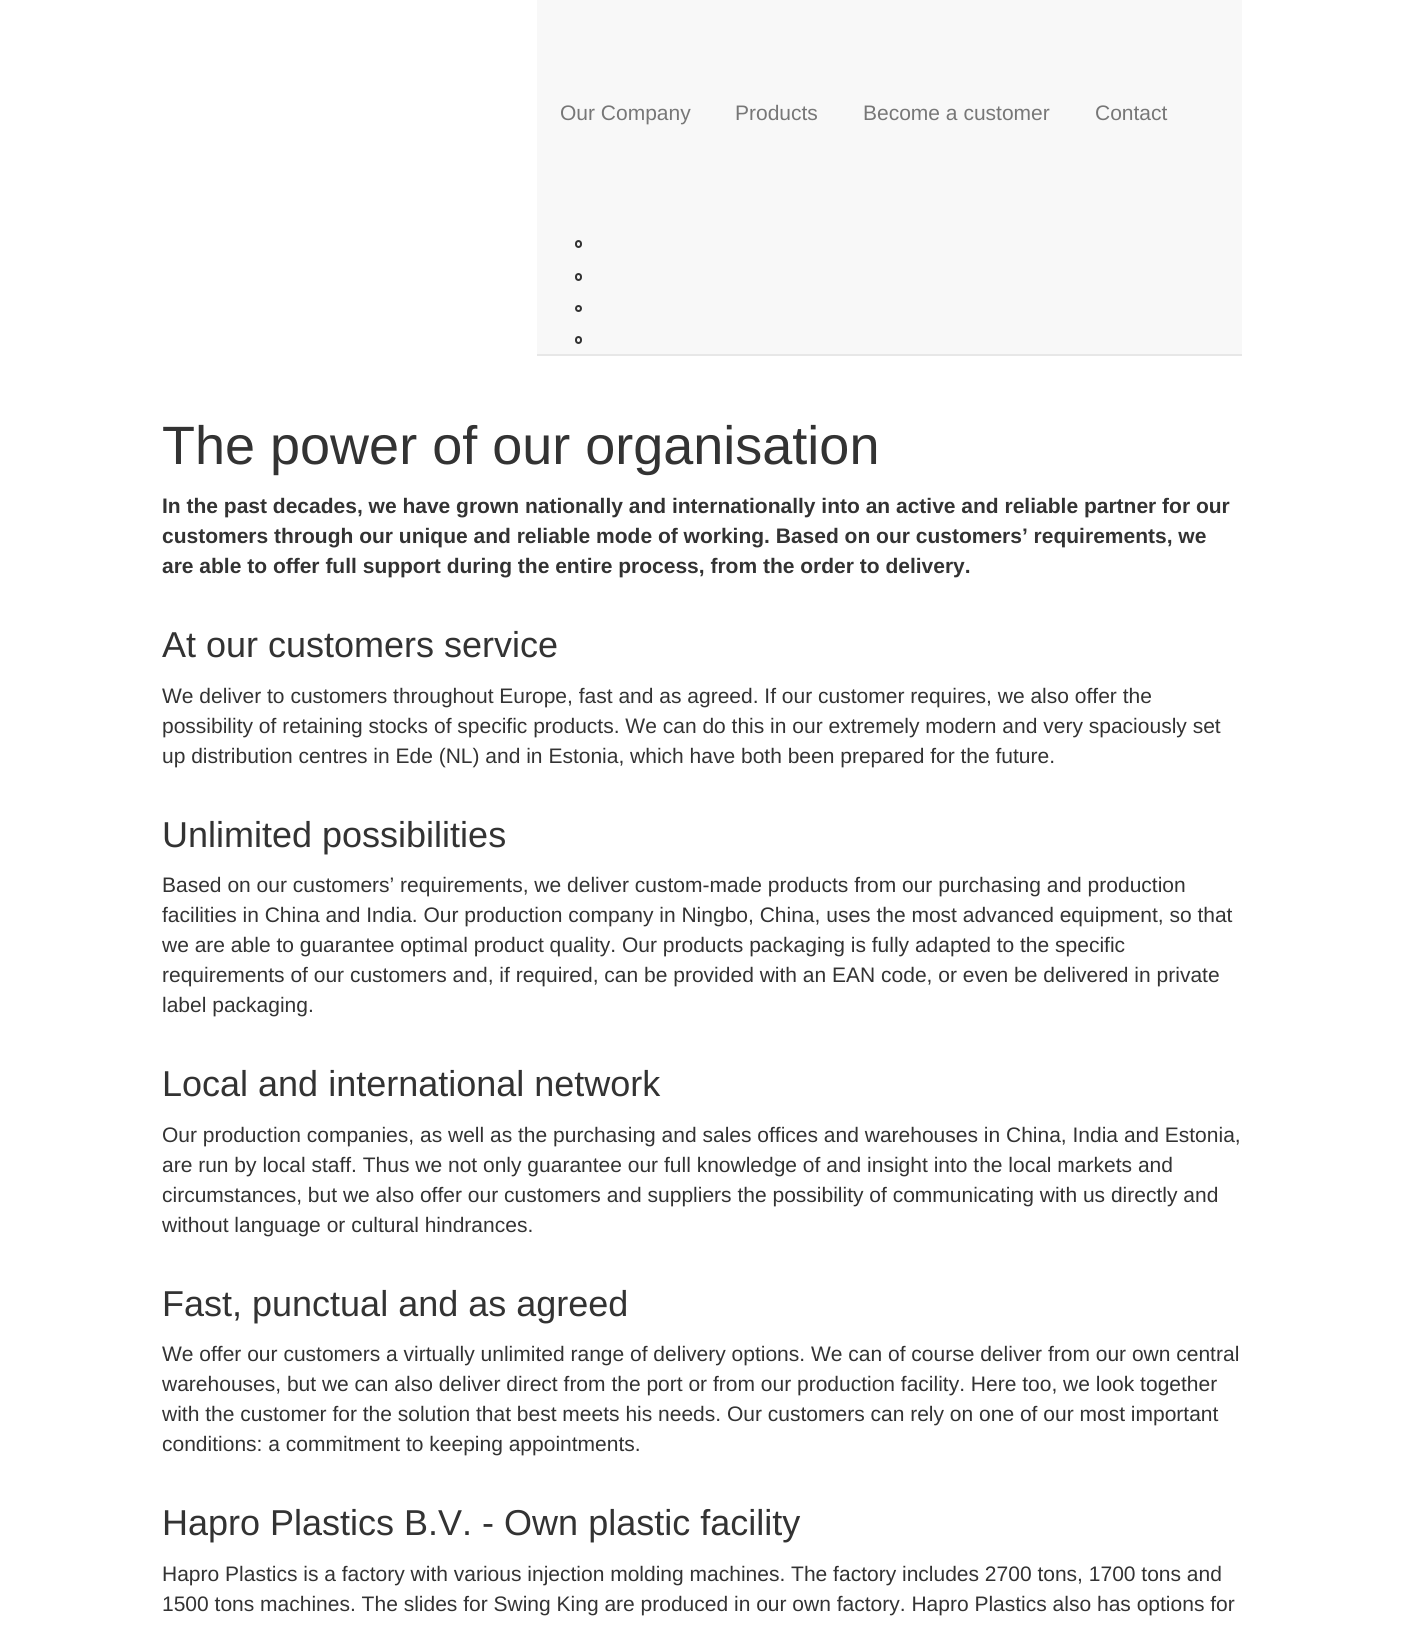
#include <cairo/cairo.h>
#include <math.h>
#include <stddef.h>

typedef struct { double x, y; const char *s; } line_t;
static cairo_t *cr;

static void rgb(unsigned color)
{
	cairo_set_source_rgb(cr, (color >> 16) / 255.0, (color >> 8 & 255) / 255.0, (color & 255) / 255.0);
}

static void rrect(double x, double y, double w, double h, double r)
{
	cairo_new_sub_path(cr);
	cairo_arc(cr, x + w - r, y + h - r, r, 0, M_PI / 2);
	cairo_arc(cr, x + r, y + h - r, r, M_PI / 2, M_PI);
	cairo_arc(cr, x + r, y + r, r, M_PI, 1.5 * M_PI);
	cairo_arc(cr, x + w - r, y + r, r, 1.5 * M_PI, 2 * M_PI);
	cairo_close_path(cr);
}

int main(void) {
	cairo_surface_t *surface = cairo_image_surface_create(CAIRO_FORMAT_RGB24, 1404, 1629);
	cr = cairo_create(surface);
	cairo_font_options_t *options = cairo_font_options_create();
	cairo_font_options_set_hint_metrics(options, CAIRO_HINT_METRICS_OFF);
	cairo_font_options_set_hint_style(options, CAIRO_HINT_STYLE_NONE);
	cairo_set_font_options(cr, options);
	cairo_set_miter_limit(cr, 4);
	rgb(0xffffff);
	cairo_paint(cr);
	rgb(0xf8f8f8);
	cairo_rectangle(cr, 537, 0, 705, 354);
	cairo_fill(cr);
	rgb(0xe7e7e7);
	cairo_rectangle(cr, 537, 354, 705, 2);
	cairo_fill(cr);
	rrect(576, 241, 5, 6, 2.5);
	rgb(0x333333);
	cairo_stroke(cr);
	rrect(576, 274, 5, 6, 2.5);
	cairo_stroke(cr);
	cairo_arc(cr, 578.5, 308.5, 2.5, 0, 2 * M_PI);
	cairo_stroke(cr);
	rrect(576, 337, 5, 6, 2.5);
	cairo_stroke(cr);
	cairo_select_font_face(cr, "Liberation Sans", CAIRO_FONT_SLANT_NORMAL, CAIRO_FONT_WEIGHT_NORMAL);
	cairo_set_font_size(cr, 21);
	rgb(0x777777);
	{
		static const line_t items[] = {
			{560, 120, "Our Company"},
			{735, 120, "Products"},
			{863, 120, "Become a customer"},
			{1095, 120, "Contact"},
		};
		for (size_t i = 0; i < sizeof items / sizeof *items; i++) {
			cairo_move_to(cr, items[i].x, items[i].y);
			cairo_show_text(cr, items[i].s);
		}
	}
	cairo_set_font_size(cr, 54);
	rgb(0x333333);
	cairo_move_to(cr, 162, 464);
	cairo_show_text(cr, "The power of our organisation");
	cairo_select_font_face(cr, "Liberation Sans", CAIRO_FONT_SLANT_NORMAL, CAIRO_FONT_WEIGHT_BOLD);
	cairo_set_font_size(cr, 21);
	{
		static const line_t items[] = {
			{162, 513, "In the past decades, we have grown nationally and internationally into an active and reliable partner for our"},
			{162, 543, "customers through our unique and reliable mode of working. Based on our customers’ requirements, we"},
			{162, 573, "are able to offer full support during the entire process, from the order to delivery."},
		};
		for (size_t i = 0; i < sizeof items / sizeof *items; i++) {
			cairo_move_to(cr, items[i].x, items[i].y);
			cairo_show_text(cr, items[i].s);
		}
	}
	cairo_select_font_face(cr, "Liberation Sans", CAIRO_FONT_SLANT_NORMAL, CAIRO_FONT_WEIGHT_NORMAL);
	cairo_set_font_size(cr, 36);
	cairo_move_to(cr, 162, 657);
	cairo_show_text(cr, "At our customers service");
	cairo_set_font_size(cr, 21);
	{
		static const line_t items[] = {
			{162, 703, "We deliver to customers throughout Europe, fast and as agreed. If our customer requires, we also offer the"},
			{162, 733, "possibility of retaining stocks of specific products. We can do this in our extremely modern and very spaciously set"},
			{162, 763, "up distribution centres in Ede (NL) and in Estonia, which have both been prepared for the future."},
		};
		for (size_t i = 0; i < sizeof items / sizeof *items; i++) {
			cairo_move_to(cr, items[i].x, items[i].y);
			cairo_show_text(cr, items[i].s);
		}
	}
	cairo_set_font_size(cr, 36);
	cairo_move_to(cr, 162, 847);
	cairo_show_text(cr, "Unlimited possibilities");
	cairo_set_font_size(cr, 21);
	{
		static const line_t items[] = {
			{162, 892, "Based on our customers’ requirements, we deliver custom-made products from our purchasing and production"},
			{162, 922, "facilities in China and India. Our production company in Ningbo, China, uses the most advanced equipment, so that"},
			{162, 952, "we are able to guarantee optimal product quality. Our products packaging is fully adapted to the specific"},
			{162, 982, "requirements of our customers and, if required, can be provided with an EAN code, or even be delivered in private"},
			{162, 1012, "label packaging."},
		};
		for (size_t i = 0; i < sizeof items / sizeof *items; i++) {
			cairo_move_to(cr, items[i].x, items[i].y);
			cairo_show_text(cr, items[i].s);
		}
	}
	cairo_set_font_size(cr, 36);
	cairo_move_to(cr, 162, 1096);
	cairo_show_text(cr, "Local and international network");
	cairo_set_font_size(cr, 21);
	{
		static const line_t items[] = {
			{162, 1142, "Our production companies, as well as the purchasing and sales offices and warehouses in China, India and Estonia,"},
			{162, 1172, "are run by local staff. Thus we not only guarantee our full knowledge of and insight into the local markets and"},
			{162, 1202, "circumstances, but we also offer our customers and suppliers the possibility of communicating with us directly and"},
			{162, 1232, "without language or cultural hindrances."},
		};
		for (size_t i = 0; i < sizeof items / sizeof *items; i++) {
			cairo_move_to(cr, items[i].x, items[i].y);
			cairo_show_text(cr, items[i].s);
		}
	}
	cairo_set_font_size(cr, 36);
	cairo_move_to(cr, 162, 1316);
	cairo_show_text(cr, "Fast, punctual and as agreed");
	cairo_set_font_size(cr, 21);
	{
		static const line_t items[] = {
			{162, 1361, "We offer our customers a virtually unlimited range of delivery options. We can of course deliver from our own central"},
			{162, 1391, "warehouses, but we can also deliver direct from the port or from our production facility. Here too, we look together"},
			{162, 1421, "with the customer for the solution that best meets his needs. Our customers can rely on one of our most important"},
			{162, 1451, "conditions: a commitment to keeping appointments."},
		};
		for (size_t i = 0; i < sizeof items / sizeof *items; i++) {
			cairo_move_to(cr, items[i].x, items[i].y);
			cairo_show_text(cr, items[i].s);
		}
	}
	cairo_set_font_size(cr, 36);
	cairo_move_to(cr, 162, 1535);
	cairo_show_text(cr, "Hapro Plastics B.V. - Own plastic facility");
	cairo_set_font_size(cr, 21);
	cairo_move_to(cr, 162, 1581);
	cairo_show_text(cr, "Hapro Plastics is a factory with various injection molding machines. The factory includes 2700 tons, 1700 tons and");
	cairo_move_to(cr, 162, 1611);
	cairo_show_text(cr, "1500 tons machines. The slides for Swing King are produced in our own factory. Hapro Plastics also has options for");
	cairo_surface_write_to_png(surface, "page.png");
	cairo_font_options_destroy(options);
	cairo_destroy(cr);
	cairo_surface_destroy(surface);
	return 0;
}
